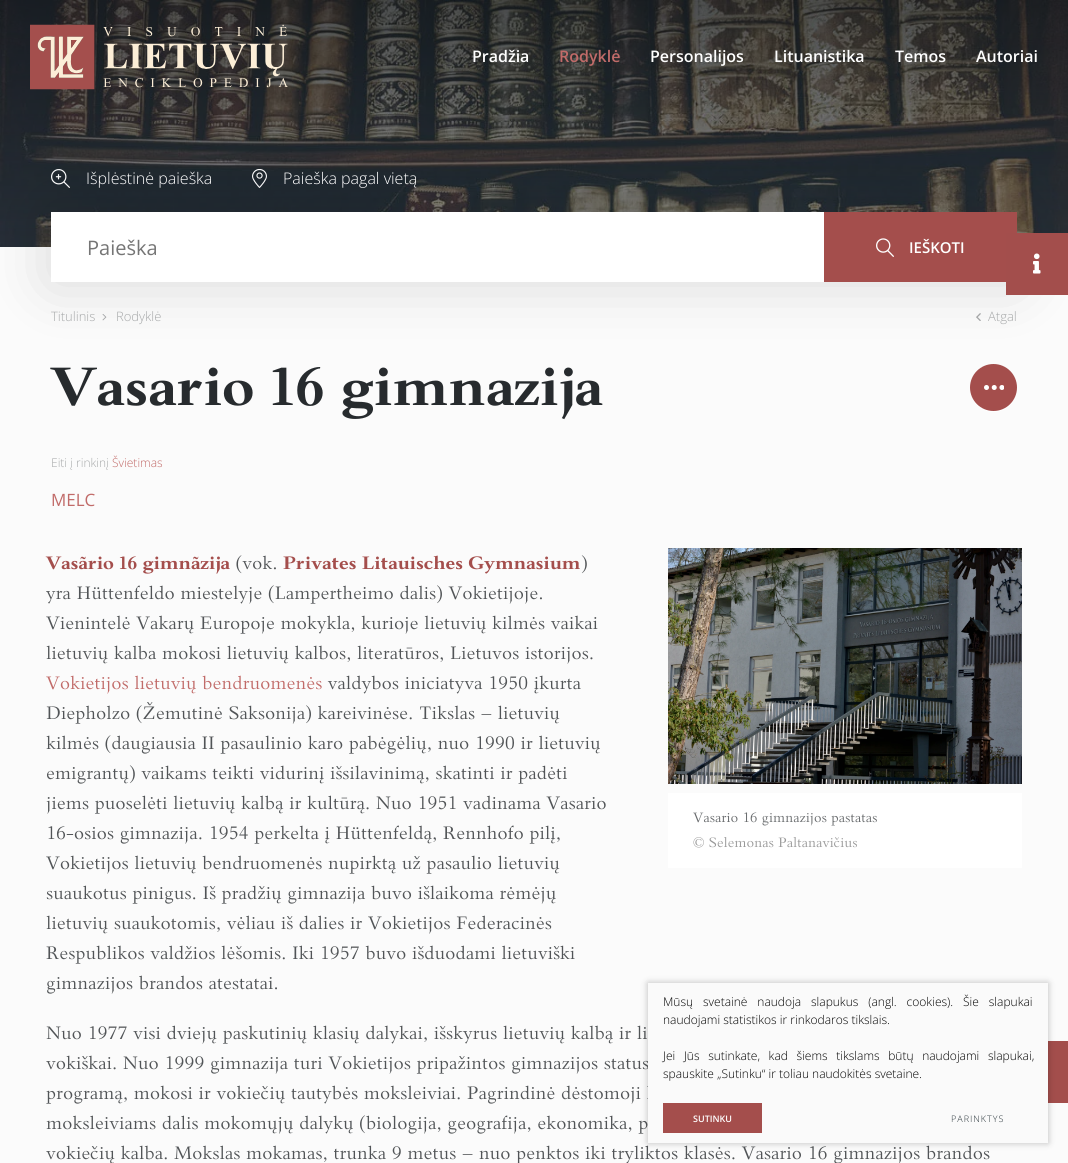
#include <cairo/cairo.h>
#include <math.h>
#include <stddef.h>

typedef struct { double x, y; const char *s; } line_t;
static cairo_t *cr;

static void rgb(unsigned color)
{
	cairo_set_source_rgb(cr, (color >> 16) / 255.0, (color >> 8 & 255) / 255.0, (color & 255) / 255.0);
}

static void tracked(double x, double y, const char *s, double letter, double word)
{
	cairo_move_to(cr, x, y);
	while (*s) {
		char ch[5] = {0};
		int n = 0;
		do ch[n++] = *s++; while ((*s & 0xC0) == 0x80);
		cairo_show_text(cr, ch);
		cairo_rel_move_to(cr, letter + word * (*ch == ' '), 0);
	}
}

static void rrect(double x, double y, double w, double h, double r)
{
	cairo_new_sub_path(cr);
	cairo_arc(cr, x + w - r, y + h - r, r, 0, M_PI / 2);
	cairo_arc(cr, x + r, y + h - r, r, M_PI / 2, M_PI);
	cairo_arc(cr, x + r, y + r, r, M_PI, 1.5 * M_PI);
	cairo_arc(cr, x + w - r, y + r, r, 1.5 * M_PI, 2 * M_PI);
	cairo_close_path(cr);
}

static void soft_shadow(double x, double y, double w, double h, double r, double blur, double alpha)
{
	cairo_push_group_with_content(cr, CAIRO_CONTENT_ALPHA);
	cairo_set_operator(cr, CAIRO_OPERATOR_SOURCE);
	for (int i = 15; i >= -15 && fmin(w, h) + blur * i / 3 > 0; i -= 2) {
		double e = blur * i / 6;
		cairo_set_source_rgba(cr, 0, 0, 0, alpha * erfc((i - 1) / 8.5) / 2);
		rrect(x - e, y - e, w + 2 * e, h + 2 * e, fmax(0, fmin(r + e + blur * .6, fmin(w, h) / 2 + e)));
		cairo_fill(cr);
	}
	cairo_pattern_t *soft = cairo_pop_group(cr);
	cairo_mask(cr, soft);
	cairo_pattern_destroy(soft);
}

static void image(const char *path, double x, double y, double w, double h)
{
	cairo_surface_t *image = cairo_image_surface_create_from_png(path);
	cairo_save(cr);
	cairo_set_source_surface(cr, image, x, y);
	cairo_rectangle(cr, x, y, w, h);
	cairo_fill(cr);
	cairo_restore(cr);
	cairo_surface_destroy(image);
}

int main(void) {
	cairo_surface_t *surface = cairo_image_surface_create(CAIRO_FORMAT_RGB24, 1068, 1163);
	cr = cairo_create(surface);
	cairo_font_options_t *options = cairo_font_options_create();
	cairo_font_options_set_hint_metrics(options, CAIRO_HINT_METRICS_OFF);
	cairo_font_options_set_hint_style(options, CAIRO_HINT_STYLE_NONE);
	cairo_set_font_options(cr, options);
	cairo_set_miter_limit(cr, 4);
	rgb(0xfbfbfb);
	cairo_paint(cr);
	image("img/2.png", 0, 0, 1068, 247);
	image("img/1.png", 30, 24, 258, 66);
	image("img/3.png", 51, 169, 19, 19);
	image("img/4.png", 252, 169, 15, 19);
	image("img/6.png", 102, 314, 5, 7);
	image("img/7.png", 976, 313, 5, 8);
	image("img/8.png", 50, 367, 553, 53);
	rgb(0xffffff);
	rrect(970, 364, 47, 48, 23.5);
	cairo_fill(cr);
	rgb(0xa44e4c);
	cairo_arc(cr, 993.5, 387.5, 23.5, 0, 2 * M_PI);
	cairo_fill(cr);
	rgb(0x000000);
	soft_shadow(51, 212, 966, 70, 0, 31, 0.14);
	rgb(0xffffff);
	cairo_rectangle(cr, 51, 212, 773, 70);
	cairo_fill(cr);
	rgb(0xa44e4c);
	cairo_rectangle(cr, 824, 212, 193, 70);
	cairo_fill(cr);
	image("img/5.png", 876, 238, 18, 19);
	image("img/9.png", 984, 385, 20, 5);
	image("img/10.png", 45, 556, 185, 18);
	image("img/11.png", 236, 555, 40, 19);
	image("img/12.png", 283, 555, 297, 19);
	image("img/13.png", 581, 555, 6, 19);
	image("img/14.png", 46, 585, 496, 19);
	image("img/15.png", 46, 615, 552, 19);
	image("img/16.png", 46, 645, 547, 19);
	image("img/17.png", 46, 675, 276, 19);
	image("img/18.png", 327, 675, 254, 19);
	image("img/19.png", 46, 702, 514, 22);
	image("img/20.png", 46, 735, 554, 19);
	image("img/21.png", 47, 765, 520, 19);
	image("img/22.png", 46, 795, 560, 19);
	image("img/23.png", 48, 825, 512, 19);
	image("img/24.png", 46, 855, 514, 19);
	image("img/25.png", 46, 885, 510, 19);
	image("img/26.png", 46, 915, 506, 19);
	image("img/27.png", 46, 945, 529, 19);
	image("img/28.png", 47, 975, 230, 19);
	image("img/29.png", 668, 548, 354, 236);
	rgb(0xffffff);
	cairo_rectangle(cr, 668, 793, 354, 75);
	cairo_fill(cr);
	image("img/30.png", 693, 812, 184, 14);
	image("img/31.png", 693, 837, 164, 11);
	image("img/32.png", 46, 1025, 601, 19);
	image("img/33.png", 46, 1055, 602, 19);
	image("img/34.png", 46, 1085, 602, 19);
	image("img/35.png", 46, 1115, 602, 19);
	image("img/36.png", 46, 1145, 944, 18);
	rgb(0xa34e4c);
	cairo_rectangle(cr, 1006, 233, 62, 62);
	cairo_fill(cr);
	image("img/37.png", 1033, 253, 8, 21);
	cairo_rectangle(cr, 1048, 1041, 20, 62);
	cairo_fill(cr);
	rgb(0x000000);
	soft_shadow(648, 983, 400, 160, 0, 3.5, 0.25);
	rgb(0xfafafa);
	cairo_rectangle(cr, 648, 983, 400, 160);
	cairo_fill(cr);
	rgb(0xa44e4c);
	cairo_rectangle(cr, 663, 1103, 99, 30);
	cairo_fill(cr);
	cairo_select_font_face(cr, "Open Sans SemiBold", CAIRO_FONT_SLANT_NORMAL, CAIRO_FONT_WEIGHT_NORMAL);
	cairo_set_font_size(cr, 16);
	rgb(0xffffff);
	cairo_move_to(cr, 472, 62);
	cairo_show_text(cr, "Pradžia");
	rgb(0xc16b69);
	cairo_move_to(cr, 559, 62);
	cairo_show_text(cr, "Rodyklė");
	rgb(0xffffff);
	{
		static const line_t items[] = {
			{650, 62, "Personalijos"},
			{774, 62, "Lituanistika"},
			{895, 62, "Temos"},
			{976, 62, "Autoriai"},
		};
		for (size_t i = 0; i < sizeof items / sizeof *items; i++) {
			cairo_move_to(cr, items[i].x, items[i].y);
			cairo_show_text(cr, items[i].s);
		}
	}
	cairo_select_font_face(cr, "Open Sans Light", CAIRO_FONT_SLANT_NORMAL, CAIRO_FONT_WEIGHT_NORMAL);
	cairo_move_to(cr, 86, 184);
	cairo_show_text(cr, "Išplėstinė paieška");
	cairo_move_to(cr, 283, 184);
	cairo_show_text(cr, "Paieška pagal vietą");
	cairo_select_font_face(cr, "Open Sans", CAIRO_FONT_SLANT_NORMAL, CAIRO_FONT_WEIGHT_NORMAL);
	cairo_set_font_size(cr, 20);
	rgb(0x757575);
	cairo_move_to(cr, 87, 255);
	cairo_show_text(cr, "Paieška");
	cairo_select_font_face(cr, "Open Sans SemiBold", CAIRO_FONT_SLANT_NORMAL, CAIRO_FONT_WEIGHT_NORMAL);
	cairo_set_font_size(cr, 15);
	rgb(0xffffff);
	cairo_move_to(cr, 909, 253);
	cairo_show_text(cr, "IEŠKOTI");
	cairo_select_font_face(cr, "Open Sans Light", CAIRO_FONT_SLANT_NORMAL, CAIRO_FONT_WEIGHT_NORMAL);
	cairo_set_font_size(cr, 13);
	rgb(0xa6a8a9);
	{
		static const line_t items[] = {
			{51, 321, "Titulinis"},
			{116, 321, "Rodyklė"},
			{988, 321, "Atgal"},
		};
		for (size_t i = 0; i < sizeof items / sizeof *items; i++) {
			cairo_move_to(cr, items[i].x, items[i].y);
			cairo_show_text(cr, items[i].s);
		}
	}
	cairo_set_font_size(cr, 12);
	cairo_move_to(cr, 51, 467);
	cairo_show_text(cr, "Eiti į rinkinį");
	rgb(0xc16b69);
	cairo_move_to(cr, 112, 467);
	cairo_show_text(cr, "Švietimas");
	cairo_select_font_face(cr, "Open Sans", CAIRO_FONT_SLANT_NORMAL, CAIRO_FONT_WEIGHT_NORMAL);
	cairo_set_font_size(cr, 17);
	cairo_move_to(cr, 51, 506);
	cairo_show_text(cr, "MELC");
	cairo_select_font_face(cr, "Open Sans Light", CAIRO_FONT_SLANT_NORMAL, CAIRO_FONT_WEIGHT_NORMAL);
	cairo_set_font_size(cr, 12);
	rgb(0x000000);
	tracked(663, 1006, "Mūsų svetainė naudoja slapukus (angl. cookies). Šie slapukai", 0, 6.75);
	cairo_move_to(cr, 663, 1024);
	cairo_show_text(cr, "naudojami statistikos ir rinkodaros tikslais.");
	tracked(663, 1060, "Jei Jūs sutinkate, kad šiems tikslams būtų naudojami slapukai,", 0, 5.5);
	cairo_move_to(cr, 663, 1078);
	cairo_show_text(cr, "spauskite „Sutinku“ ir toliau naudokitės svetaine.");
	cairo_select_font_face(cr, "Open Sans SemiBold", CAIRO_FONT_SLANT_NORMAL, CAIRO_FONT_WEIGHT_NORMAL);
	cairo_set_font_size(cr, 9);
	rgb(0xffffff);
	cairo_move_to(cr, 693, 1122);
	cairo_show_text(cr, "SUTINKU");
	cairo_select_font_face(cr, "Open Sans Light", CAIRO_FONT_SLANT_NORMAL, CAIRO_FONT_WEIGHT_NORMAL);
	rgb(0x263238);
	tracked(951, 1122, "PARINKTYS", 1, 0);
	cairo_surface_write_to_png(surface, "page.png");
	cairo_font_options_destroy(options);
	cairo_destroy(cr);
	cairo_surface_destroy(surface);
	return 0;
}
